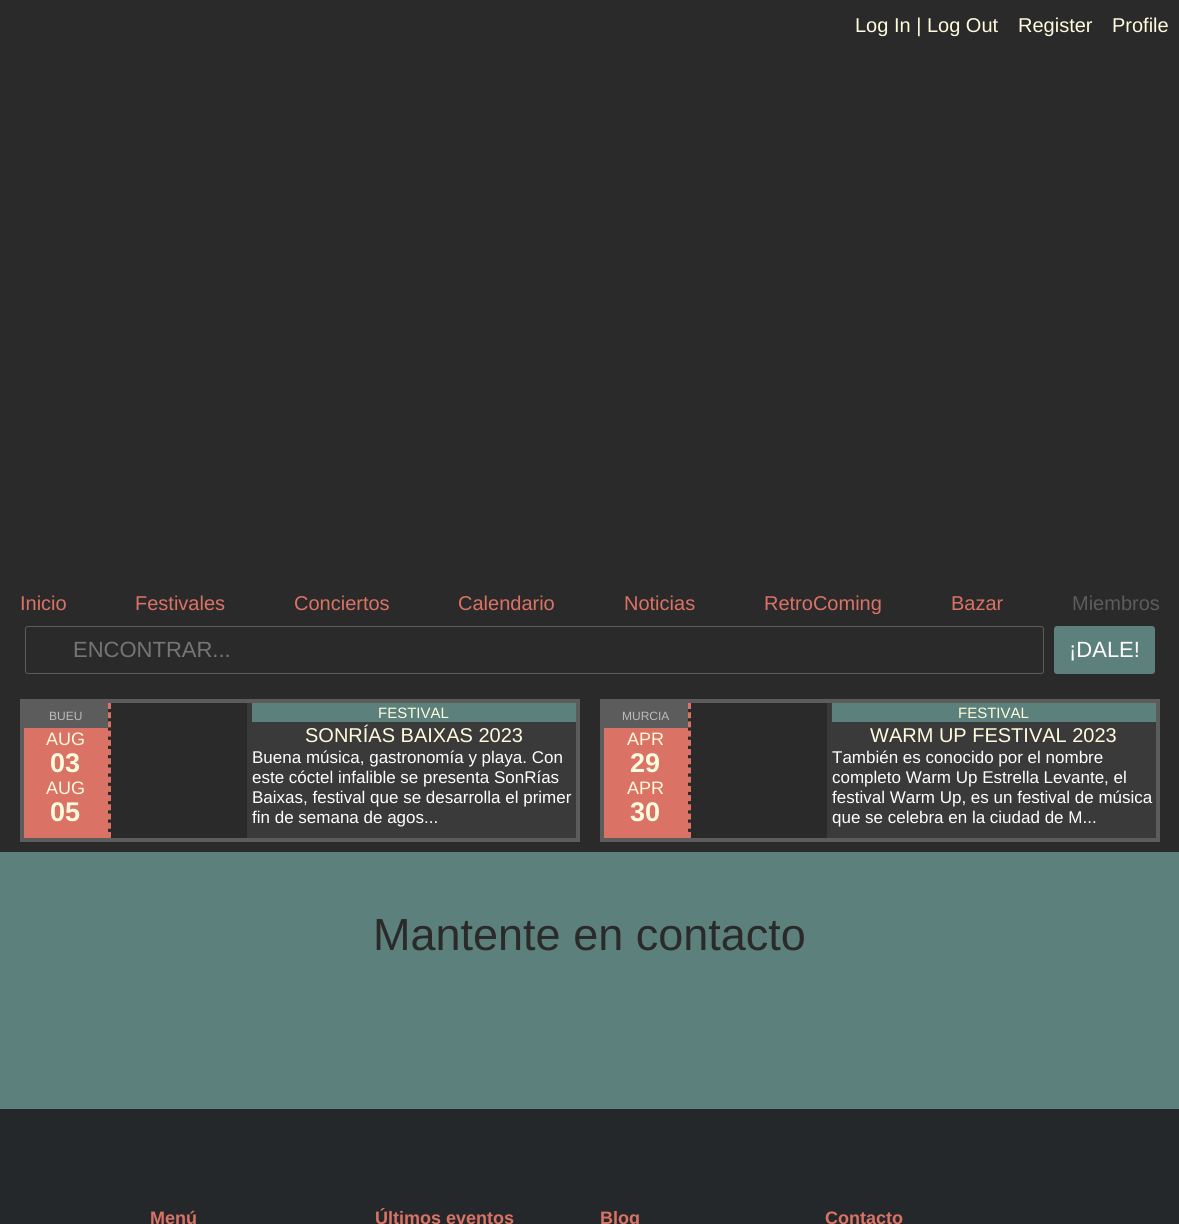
#include <cairo/cairo.h>
#include <math.h>
#include <stddef.h>

typedef struct { double x, y; const char *s; } line_t;
typedef struct { double x, y, w, h; unsigned color; } box_t;
static cairo_t *cr;

static void rgb(unsigned color)
{
	cairo_set_source_rgb(cr, (color >> 16) / 255.0, (color >> 8 & 255) / 255.0, (color & 255) / 255.0);
}

static void rrect(double x, double y, double w, double h, double r)
{
	cairo_new_sub_path(cr);
	cairo_arc(cr, x + w - r, y + h - r, r, 0, M_PI / 2);
	cairo_arc(cr, x + r, y + h - r, r, M_PI / 2, M_PI);
	cairo_arc(cr, x + r, y + r, r, M_PI, 1.5 * M_PI);
	cairo_arc(cr, x + w - r, y + r, r, 1.5 * M_PI, 2 * M_PI);
	cairo_close_path(cr);
}

int main(void) {
	cairo_surface_t *surface = cairo_image_surface_create(CAIRO_FORMAT_RGB24, 1179, 1224);
	cr = cairo_create(surface);
	cairo_font_options_t *options = cairo_font_options_create();
	cairo_font_options_set_hint_metrics(options, CAIRO_HINT_METRICS_OFF);
	cairo_font_options_set_hint_style(options, CAIRO_HINT_STYLE_NONE);
	cairo_set_font_options(cr, options);
	cairo_set_miter_limit(cr, 4);
	rgb(0x2a2a2a);
	cairo_paint(cr);
	rrect(25.5, 626.5, 1018, 47, 2.5);
	rgb(0x5c5c5c);
	cairo_set_line_width(cr, 1);
	cairo_stroke(cr);
	rgb(0x5c817c);
	rrect(1054, 626, 101, 48, 3);
	cairo_fill(cr);
	cairo_rectangle(cr, 22, 701, 556, 139);
	rgb(0x5c5c5c);
	cairo_set_line_width(cr, 4);
	cairo_stroke(cr);
	{
		static const box_t items[] = {
			{24, 826, 84, 12, 0xda7266},
			{24, 703, 84, 25, 0x5c5c5c},
			{24, 728, 84, 98, 0xda7266},
		};
		for (size_t i = 0; i < sizeof items / sizeof *items; i++) {
			rgb(items[i].color);
			cairo_rectangle(cr, items[i].x, items[i].y, items[i].w, items[i].h);
			cairo_fill(cr);
		}
	}
	cairo_new_path(cr);
	cairo_move_to(cr, 109.5, 703);
	cairo_line_to(cr, 109.5, 838);
	cairo_set_line_width(cr, 3);
	cairo_set_dash(cr, (double[]){6, 3.21}, 2, 0);
	cairo_stroke(cr);
	rgb(0x3a3a3a);
	cairo_rectangle(cr, 247, 703, 329, 135);
	cairo_fill(cr);
	rgb(0x5c817c);
	cairo_rectangle(cr, 252, 703, 324, 19);
	cairo_fill(cr);
	cairo_rectangle(cr, 602, 701, 556, 139);
	rgb(0x5c5c5c);
	cairo_set_line_width(cr, 4);
	cairo_set_dash(cr, NULL, 0, 0);
	cairo_stroke(cr);
	{
		static const box_t items[] = {
			{604, 826, 84, 12, 0xda7266},
			{604, 703, 84, 25, 0x5c5c5c},
			{604, 728, 84, 98, 0xda7266},
		};
		for (size_t i = 0; i < sizeof items / sizeof *items; i++) {
			rgb(items[i].color);
			cairo_rectangle(cr, items[i].x, items[i].y, items[i].w, items[i].h);
			cairo_fill(cr);
		}
	}
	cairo_new_path(cr);
	cairo_move_to(cr, 689.5, 703);
	cairo_line_to(cr, 689.5, 838);
	cairo_set_line_width(cr, 3);
	cairo_set_dash(cr, (double[]){6, 3.21}, 2, 0);
	cairo_stroke(cr);
	{
		static const box_t items[] = {
			{827, 703, 329, 135, 0x3a3a3a},
			{832, 703, 324, 19, 0x5c817c},
			{0, 852, 1179, 257, 0x5c817c},
			{0, 1109, 1179, 115, 0x25282b},
		};
		for (size_t i = 0; i < sizeof items / sizeof *items; i++) {
			rgb(items[i].color);
			cairo_rectangle(cr, items[i].x, items[i].y, items[i].w, items[i].h);
			cairo_fill(cr);
		}
	}
	cairo_select_font_face(cr, "Liberation Sans", CAIRO_FONT_SLANT_NORMAL, CAIRO_FONT_WEIGHT_NORMAL);
	cairo_set_font_size(cr, 20);
	rgb(0xfffbdc);
	{
		static const line_t items[] = {
			{855, 32, "Log In | Log Out"},
			{1018, 32, "Register"},
			{1112, 32, "Profile"},
		};
		for (size_t i = 0; i < sizeof items / sizeof *items; i++) {
			cairo_move_to(cr, items[i].x, items[i].y);
			cairo_show_text(cr, items[i].s);
		}
	}
	rgb(0xda7266);
	{
		static const line_t items[] = {
			{20, 610, "Inicio"},
			{135, 610, "Festivales"},
			{294, 610, "Conciertos"},
			{458, 610, "Calendario"},
			{624, 610, "Noticias"},
			{764, 610, "RetroComing"},
			{951, 610, "Bazar"},
		};
		for (size_t i = 0; i < sizeof items / sizeof *items; i++) {
			cairo_move_to(cr, items[i].x, items[i].y);
			cairo_show_text(cr, items[i].s);
		}
	}
	rgb(0x5c5c5c);
	cairo_move_to(cr, 1072, 610);
	cairo_show_text(cr, "Miembros");
	cairo_set_font_size(cr, 22);
	rgb(0x757575);
	cairo_move_to(cr, 73, 657);
	cairo_show_text(cr, "ENCONTRAR...");
	rgb(0xffffff);
	cairo_move_to(cr, 1069, 657);
	cairo_show_text(cr, "¡DALE!");
	cairo_set_font_size(cr, 12);
	rgb(0xbbbbbb);
	cairo_move_to(cr, 49, 720);
	cairo_show_text(cr, "BUEU");
	cairo_set_font_size(cr, 18);
	rgb(0xfffbdc);
	cairo_move_to(cr, 46, 745);
	cairo_show_text(cr, "AUG");
	cairo_select_font_face(cr, "Liberation Sans", CAIRO_FONT_SLANT_NORMAL, CAIRO_FONT_WEIGHT_BOLD);
	cairo_set_font_size(cr, 27);
	cairo_move_to(cr, 50, 772);
	cairo_show_text(cr, "03");
	cairo_select_font_face(cr, "Liberation Sans", CAIRO_FONT_SLANT_NORMAL, CAIRO_FONT_WEIGHT_NORMAL);
	cairo_set_font_size(cr, 18);
	cairo_move_to(cr, 46, 794);
	cairo_show_text(cr, "AUG");
	cairo_select_font_face(cr, "Liberation Sans", CAIRO_FONT_SLANT_NORMAL, CAIRO_FONT_WEIGHT_BOLD);
	cairo_set_font_size(cr, 27);
	cairo_move_to(cr, 50, 821);
	cairo_show_text(cr, "05");
	cairo_select_font_face(cr, "Liberation Sans", CAIRO_FONT_SLANT_NORMAL, CAIRO_FONT_WEIGHT_NORMAL);
	cairo_set_font_size(cr, 15);
	cairo_move_to(cr, 378, 718);
	cairo_show_text(cr, "FESTIVAL");
	cairo_set_font_size(cr, 20);
	cairo_move_to(cr, 305, 742);
	cairo_show_text(cr, "SONRÍAS BAIXAS 2023");
	cairo_set_font_size(cr, 17);
	rgb(0xffffff);
	{
		static const line_t items[] = {
			{252, 763, "Buena música, gastronomía y playa. Con"},
			{252, 783, "este cóctel infalible se presenta SonRías"},
			{252, 803, "Baixas, festival que se desarrolla el primer"},
			{252, 823, "fin de semana de agos..."},
		};
		for (size_t i = 0; i < sizeof items / sizeof *items; i++) {
			cairo_move_to(cr, items[i].x, items[i].y);
			cairo_show_text(cr, items[i].s);
		}
	}
	cairo_set_font_size(cr, 12);
	rgb(0xbbbbbb);
	cairo_move_to(cr, 622, 720);
	cairo_show_text(cr, "MURCIA");
	cairo_set_font_size(cr, 18);
	rgb(0xfffbdc);
	cairo_move_to(cr, 627, 745);
	cairo_show_text(cr, "APR");
	cairo_select_font_face(cr, "Liberation Sans", CAIRO_FONT_SLANT_NORMAL, CAIRO_FONT_WEIGHT_BOLD);
	cairo_set_font_size(cr, 27);
	cairo_move_to(cr, 630, 772);
	cairo_show_text(cr, "29");
	cairo_select_font_face(cr, "Liberation Sans", CAIRO_FONT_SLANT_NORMAL, CAIRO_FONT_WEIGHT_NORMAL);
	cairo_set_font_size(cr, 18);
	cairo_move_to(cr, 627, 794);
	cairo_show_text(cr, "APR");
	cairo_select_font_face(cr, "Liberation Sans", CAIRO_FONT_SLANT_NORMAL, CAIRO_FONT_WEIGHT_BOLD);
	cairo_set_font_size(cr, 27);
	cairo_move_to(cr, 630, 821);
	cairo_show_text(cr, "30");
	cairo_select_font_face(cr, "Liberation Sans", CAIRO_FONT_SLANT_NORMAL, CAIRO_FONT_WEIGHT_NORMAL);
	cairo_set_font_size(cr, 15);
	cairo_move_to(cr, 958, 718);
	cairo_show_text(cr, "FESTIVAL");
	cairo_set_font_size(cr, 20);
	cairo_move_to(cr, 870, 742);
	cairo_show_text(cr, "WARM UP FESTIVAL 2023");
	cairo_set_font_size(cr, 17);
	rgb(0xffffff);
	{
		static const line_t items[] = {
			{832, 763, "También es conocido por el nombre"},
			{832, 783, "completo Warm Up Estrella Levante, el"},
			{832, 803, "festival Warm Up, es un festival de música"},
			{832, 823, "que se celebra en la ciudad de M..."},
		};
		for (size_t i = 0; i < sizeof items / sizeof *items; i++) {
			cairo_move_to(cr, items[i].x, items[i].y);
			cairo_show_text(cr, items[i].s);
		}
	}
	cairo_set_font_size(cr, 45);
	rgb(0x2a2a2a);
	cairo_move_to(cr, 373, 950);
	cairo_show_text(cr, "Mantente en contacto");
	cairo_select_font_face(cr, "Liberation Sans", CAIRO_FONT_SLANT_NORMAL, CAIRO_FONT_WEIGHT_BOLD);
	cairo_set_font_size(cr, 18);
	rgb(0xda7266);
	{
		static const line_t items[] = {
			{150, 1224, "Menú"},
			{375, 1224, "Últimos eventos"},
			{600, 1224, "Blog"},
			{825, 1224, "Contacto"},
		};
		for (size_t i = 0; i < sizeof items / sizeof *items; i++) {
			cairo_move_to(cr, items[i].x, items[i].y);
			cairo_show_text(cr, items[i].s);
		}
	}
	cairo_surface_write_to_png(surface, "page.png");
	cairo_font_options_destroy(options);
	cairo_destroy(cr);
	cairo_surface_destroy(surface);
	return 0;
}
